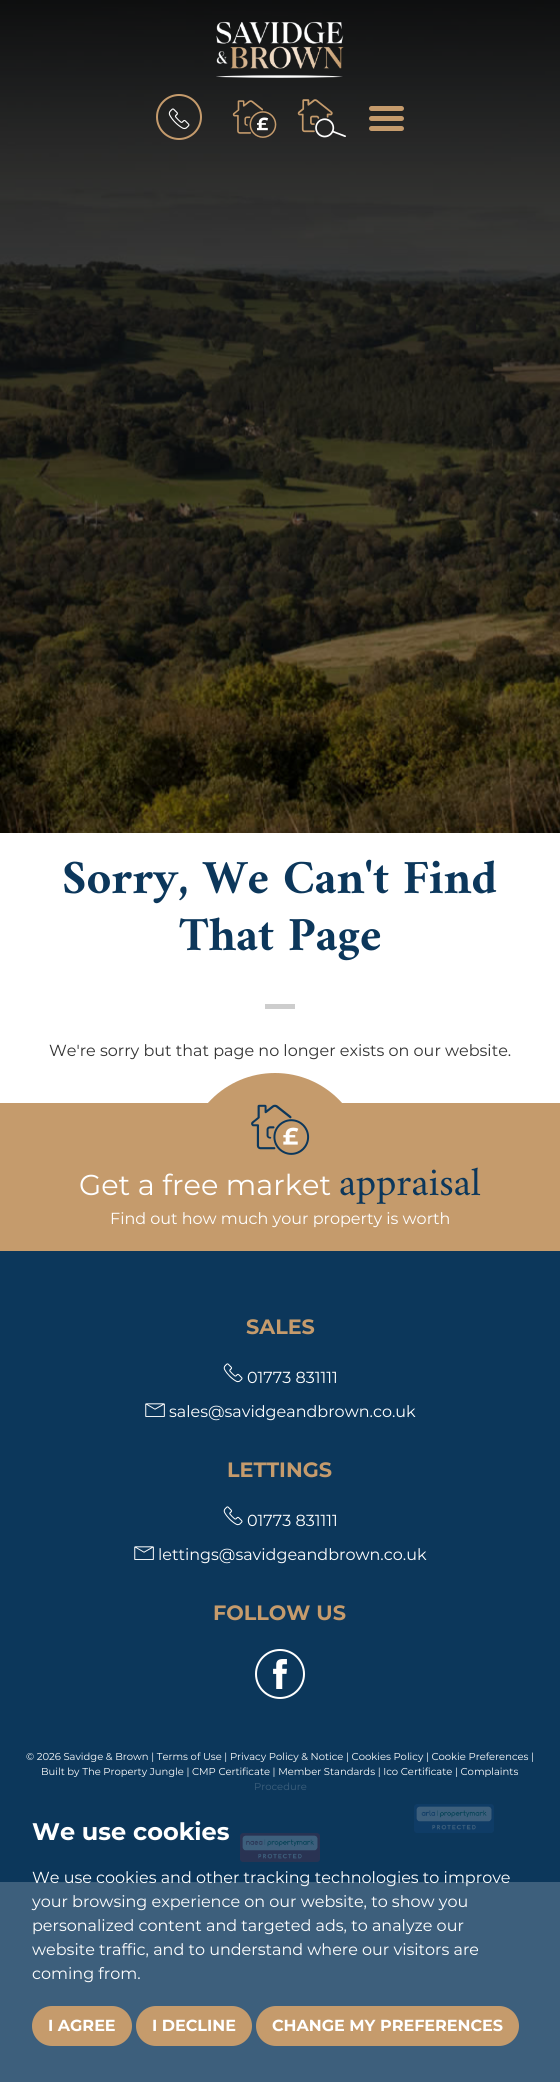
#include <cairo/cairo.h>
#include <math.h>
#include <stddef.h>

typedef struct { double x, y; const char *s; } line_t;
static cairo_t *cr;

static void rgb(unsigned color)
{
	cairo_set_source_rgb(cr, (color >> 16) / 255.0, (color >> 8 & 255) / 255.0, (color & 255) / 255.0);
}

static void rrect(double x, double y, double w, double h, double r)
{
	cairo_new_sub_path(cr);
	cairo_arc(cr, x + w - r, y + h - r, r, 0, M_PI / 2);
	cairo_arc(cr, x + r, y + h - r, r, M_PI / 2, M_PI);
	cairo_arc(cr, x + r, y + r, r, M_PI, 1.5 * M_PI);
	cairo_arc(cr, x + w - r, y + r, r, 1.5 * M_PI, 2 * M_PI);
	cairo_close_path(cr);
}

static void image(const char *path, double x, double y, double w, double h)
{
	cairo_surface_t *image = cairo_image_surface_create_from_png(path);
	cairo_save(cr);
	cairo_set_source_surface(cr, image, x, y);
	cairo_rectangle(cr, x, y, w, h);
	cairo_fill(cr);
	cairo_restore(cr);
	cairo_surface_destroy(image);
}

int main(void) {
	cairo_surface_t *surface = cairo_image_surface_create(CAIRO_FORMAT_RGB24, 560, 2082);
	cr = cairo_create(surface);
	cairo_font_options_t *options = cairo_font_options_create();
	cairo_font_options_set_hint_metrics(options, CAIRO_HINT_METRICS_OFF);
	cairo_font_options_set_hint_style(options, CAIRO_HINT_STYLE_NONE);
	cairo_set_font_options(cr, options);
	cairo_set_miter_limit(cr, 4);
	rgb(0xffffff);
	cairo_paint(cr);
	rgb(0x3d5f7c);
	cairo_rectangle(cr, 0, 1882, 560, 200);
	cairo_fill(cr);
	image("img/1.png", 0, 0, 560, 833);
	image("img/2.png", 216, 21, 128, 57);
	cairo_arc(cr, 179, 117, 22, 0, 2 * M_PI);
	rgb(0xc59b6c);
	cairo_stroke(cr);
	image("img/3.png", 168, 108, 22, 22);
	image("img/4.png", 232, 100, 45, 38);
	image("img/5.png", 297, 99, 49, 39);
	image("img/6.png", 369, 106, 35, 25);
	rgb(0xcdcdcd);
	cairo_rectangle(cr, 265, 1004, 30, 5);
	cairo_fill(cr);
	cairo_save(cr);
	cairo_rectangle(cr, 205, 1073, 150, 150);
	cairo_clip(cr);
	rgb(0xc59b6c);
	cairo_arc(cr, 275, 1163, 90, 0, 2 * M_PI);
	cairo_fill(cr);
	cairo_restore(cr);
	rgb(0xc59b6c);
	cairo_rectangle(cr, 0, 1103, 560, 148);
	cairo_fill(cr);
	image("img/7.png", 251, 1104, 59, 51);
	rgb(0x0c375b);
	cairo_rectangle(cr, 0, 1251, 560, 631);
	cairo_fill(cr);
	image("img/8.png", 223, 1363, 20, 20);
	image("img/9.png", 145, 1403, 20, 14);
	image("img/8.png", 223, 1506, 20, 20);
	image("img/9.png", 134, 1546, 20, 14);
	cairo_arc(cr, 280, 1674, 24, 0, 2 * M_PI);
	rgb(0xffffff);
	cairo_stroke(cr);
	image("img/10.png", 273, 1659, 14, 30);
	image("img/11.png", 414, 1804, 80, 29);
	image("img/12.png", 240, 1833, 80, 29);
	rgb(0xc59b6c);
	rrect(32, 2006, 100, 40, 20);
	cairo_fill(cr);
	rrect(136, 2006, 116, 40, 20);
	cairo_fill(cr);
	rrect(256, 2006, 263, 40, 20);
	cairo_fill(cr);
	cairo_select_font_face(cr, "Amiri", CAIRO_FONT_SLANT_NORMAL, CAIRO_FONT_WEIGHT_BOLD);
	cairo_set_font_size(cr, 48);
	rgb(0x0c375b);
	cairo_move_to(cr, 62, 893);
	cairo_show_text(cr, "Sorry, We Can't Find");
	cairo_move_to(cr, 179, 950);
	cairo_show_text(cr, "That Page");
	cairo_select_font_face(cr, "Montserrat", CAIRO_FONT_SLANT_NORMAL, CAIRO_FONT_WEIGHT_NORMAL);
	cairo_set_font_size(cr, 16);
	rgb(0x333333);
	cairo_move_to(cr, 49, 1056);
	cairo_show_text(cr, "We're sorry but that page no longer exists on our website.");
	cairo_set_font_size(cr, 28.75);
	rgb(0xffffff);
	cairo_move_to(cr, 79, 1195);
	cairo_show_text(cr, "Get a free market");
	cairo_select_font_face(cr, "Amiri", CAIRO_FONT_SLANT_NORMAL, CAIRO_FONT_WEIGHT_NORMAL);
	cairo_set_font_size(cr, 40.5);
	rgb(0x0c375b);
	cairo_move_to(cr, 339, 1195);
	cairo_show_text(cr, "appraisal");
	cairo_select_font_face(cr, "Montserrat", CAIRO_FONT_SLANT_NORMAL, CAIRO_FONT_WEIGHT_NORMAL);
	cairo_set_font_size(cr, 16);
	rgb(0xffffff);
	cairo_move_to(cr, 110, 1224);
	cairo_show_text(cr, "Find out how much your property is worth");
	cairo_select_font_face(cr, "Montserrat", CAIRO_FONT_SLANT_NORMAL, CAIRO_FONT_WEIGHT_BOLD);
	cairo_set_font_size(cr, 20.75);
	rgb(0xc59b6c);
	cairo_move_to(cr, 246, 1334);
	cairo_show_text(cr, "SALES");
	cairo_select_font_face(cr, "Montserrat", CAIRO_FONT_SLANT_NORMAL, CAIRO_FONT_WEIGHT_NORMAL);
	cairo_set_font_size(cr, 16);
	rgb(0xffffff);
	cairo_move_to(cr, 247, 1383);
	cairo_show_text(cr, "01773 831111");
	cairo_move_to(cr, 169, 1417);
	cairo_show_text(cr, "sales@savidgeandbrown.co.uk");
	cairo_select_font_face(cr, "Montserrat", CAIRO_FONT_SLANT_NORMAL, CAIRO_FONT_WEIGHT_BOLD);
	cairo_set_font_size(cr, 20.75);
	rgb(0xc59b6c);
	cairo_move_to(cr, 227, 1477);
	cairo_show_text(cr, "LETTINGS");
	cairo_select_font_face(cr, "Montserrat", CAIRO_FONT_SLANT_NORMAL, CAIRO_FONT_WEIGHT_NORMAL);
	cairo_set_font_size(cr, 16);
	rgb(0xffffff);
	cairo_move_to(cr, 247, 1526);
	cairo_show_text(cr, "01773 831111");
	cairo_move_to(cr, 158, 1560);
	cairo_show_text(cr, "lettings@savidgeandbrown.co.uk");
	cairo_select_font_face(cr, "Montserrat", CAIRO_FONT_SLANT_NORMAL, CAIRO_FONT_WEIGHT_BOLD);
	cairo_set_font_size(cr, 20.75);
	rgb(0xc59b6c);
	cairo_move_to(cr, 213, 1620);
	cairo_show_text(cr, "FOLLOW US");
	cairo_select_font_face(cr, "Montserrat", CAIRO_FONT_SLANT_NORMAL, CAIRO_FONT_WEIGHT_NORMAL);
	cairo_set_font_size(cr, 10);
	rgb(0xffffff);
	cairo_move_to(cr, 26, 1760);
	cairo_show_text(cr, "© 2026 Savidge & Brown | Terms of Use | Privacy Policy & Notice | Cookies Policy | Cookie Preferences |");
	cairo_move_to(cr, 41, 1775);
	cairo_show_text(cr, "Built by The Property Jungle | CMP Certificate | Member Standards | Ico Certificate | Complaints");
	rgb(0x3d5f7c);
	cairo_move_to(cr, 254, 1790);
	cairo_show_text(cr, "Procedure");
	cairo_select_font_face(cr, "Montserrat", CAIRO_FONT_SLANT_NORMAL, CAIRO_FONT_WEIGHT_BOLD);
	cairo_set_font_size(cr, 24);
	rgb(0xffffff);
	cairo_move_to(cr, 32, 1840);
	cairo_show_text(cr, "We use cookies");
	cairo_select_font_face(cr, "Montserrat", CAIRO_FONT_SLANT_NORMAL, CAIRO_FONT_WEIGHT_NORMAL);
	cairo_set_font_size(cr, 16);
	{
		static const line_t items[] = {
			{32, 1883, "We use cookies and other tracking technologies to improve"},
			{32, 1907, "your browsing experience on our website, to show you"},
			{32, 1931, "personalized content and targeted ads, to analyze our"},
			{32, 1955, "website traffic, and to understand where our visitors are"},
			{32, 1979, "coming from."},
		};
		for (size_t i = 0; i < sizeof items / sizeof *items; i++) {
			cairo_move_to(cr, items[i].x, items[i].y);
			cairo_show_text(cr, items[i].s);
		}
	}
	cairo_select_font_face(cr, "Montserrat", CAIRO_FONT_SLANT_NORMAL, CAIRO_FONT_WEIGHT_BOLD);
	{
		static const line_t items[] = {
			{48, 2031, "I AGREE"},
			{152, 2031, "I DECLINE"},
			{272, 2031, "CHANGE MY PREFERENCES"},
		};
		for (size_t i = 0; i < sizeof items / sizeof *items; i++) {
			cairo_move_to(cr, items[i].x, items[i].y);
			cairo_show_text(cr, items[i].s);
		}
	}
	cairo_surface_write_to_png(surface, "page.png");
	cairo_font_options_destroy(options);
	cairo_destroy(cr);
	cairo_surface_destroy(surface);
	return 0;
}
